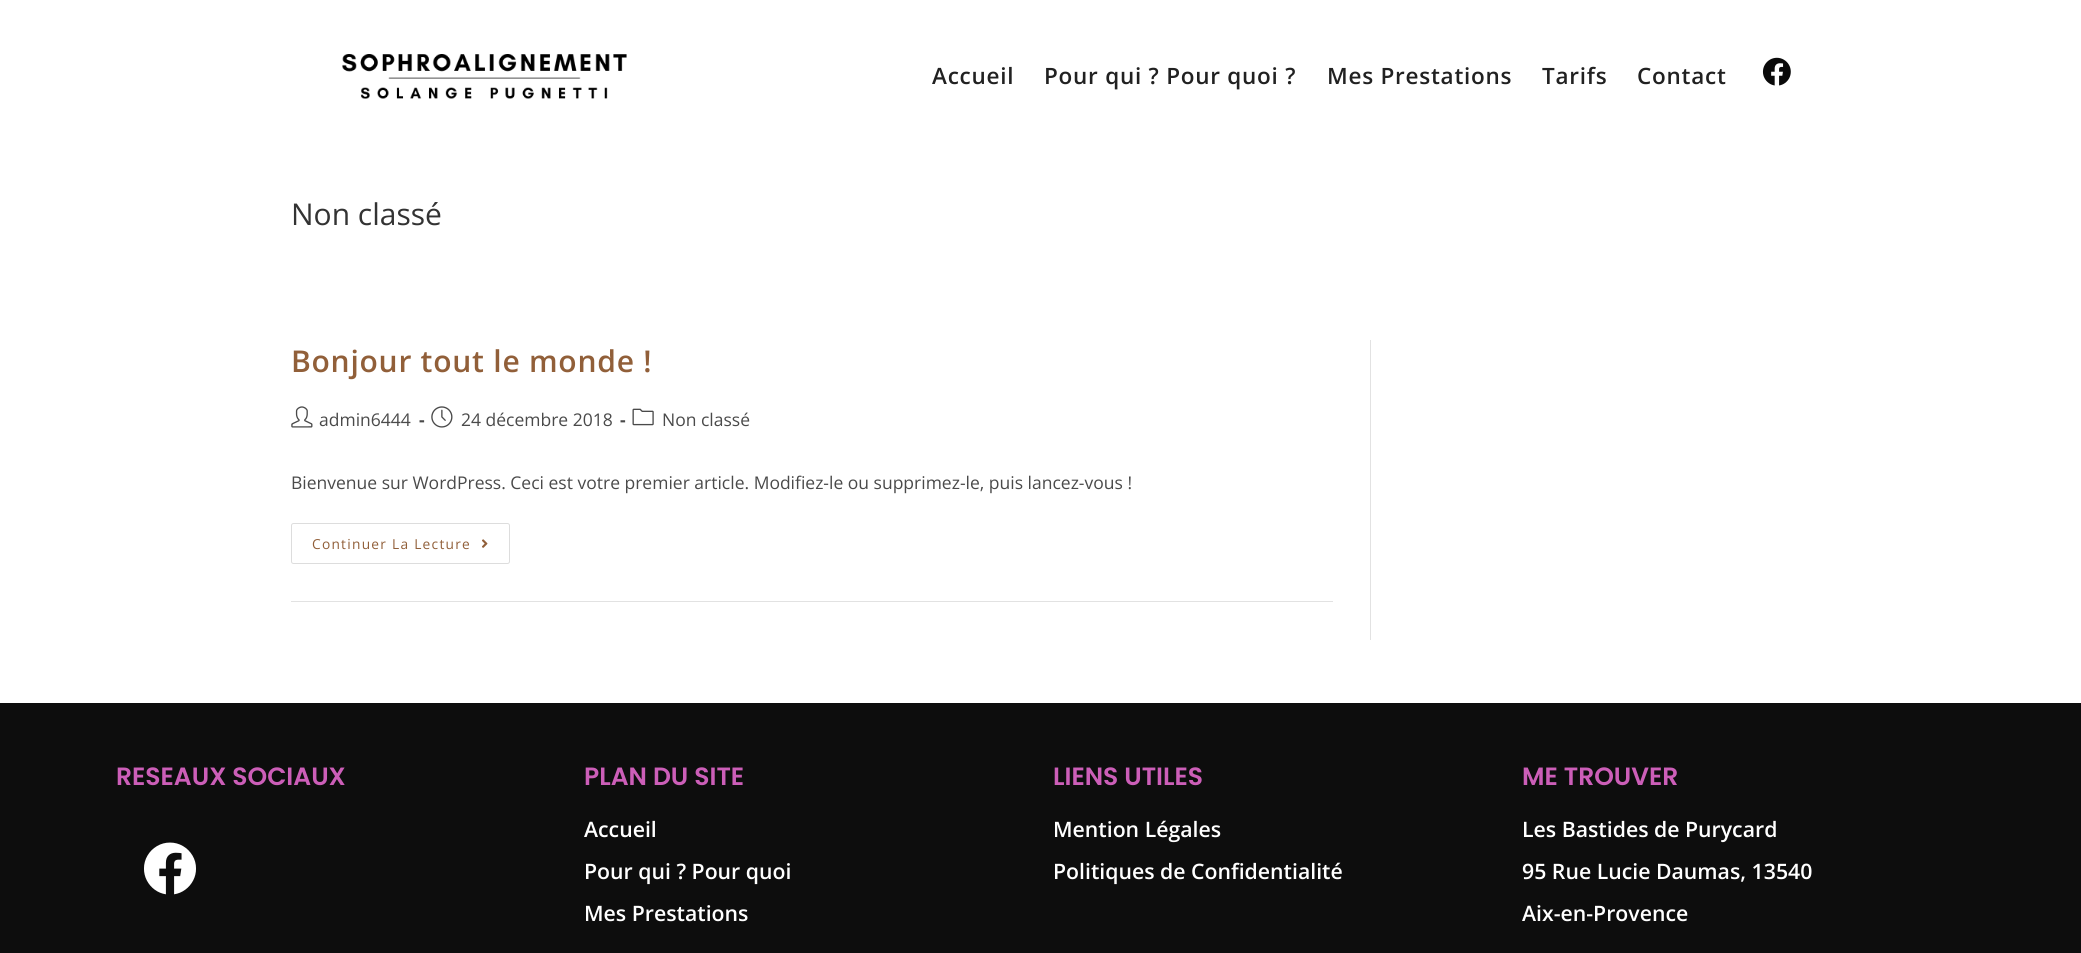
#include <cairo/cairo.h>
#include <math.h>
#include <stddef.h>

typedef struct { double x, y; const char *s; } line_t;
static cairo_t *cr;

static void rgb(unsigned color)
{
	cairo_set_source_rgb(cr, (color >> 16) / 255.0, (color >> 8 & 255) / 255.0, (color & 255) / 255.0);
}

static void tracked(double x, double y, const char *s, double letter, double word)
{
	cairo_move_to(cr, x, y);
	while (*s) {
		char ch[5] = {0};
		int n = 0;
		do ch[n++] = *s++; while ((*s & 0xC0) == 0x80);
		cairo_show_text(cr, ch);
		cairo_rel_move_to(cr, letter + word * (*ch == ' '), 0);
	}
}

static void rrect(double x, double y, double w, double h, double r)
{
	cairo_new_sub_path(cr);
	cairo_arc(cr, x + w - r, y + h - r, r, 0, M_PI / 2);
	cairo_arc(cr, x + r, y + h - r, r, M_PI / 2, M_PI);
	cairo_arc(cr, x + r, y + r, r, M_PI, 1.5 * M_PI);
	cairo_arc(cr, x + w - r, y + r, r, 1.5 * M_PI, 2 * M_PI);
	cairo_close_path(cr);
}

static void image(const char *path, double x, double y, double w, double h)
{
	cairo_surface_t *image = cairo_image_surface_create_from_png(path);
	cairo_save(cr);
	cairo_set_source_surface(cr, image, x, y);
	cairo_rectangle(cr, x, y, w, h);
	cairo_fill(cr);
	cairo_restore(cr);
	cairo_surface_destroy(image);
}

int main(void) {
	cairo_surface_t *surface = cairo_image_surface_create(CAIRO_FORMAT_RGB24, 2081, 953);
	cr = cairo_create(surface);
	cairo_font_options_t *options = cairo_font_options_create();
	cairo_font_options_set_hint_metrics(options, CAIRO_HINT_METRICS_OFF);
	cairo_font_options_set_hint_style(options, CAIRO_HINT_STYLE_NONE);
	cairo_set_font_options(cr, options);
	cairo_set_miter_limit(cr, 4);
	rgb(0xffffff);
	cairo_paint(cr);
	image("img/1.png", 342, 54, 285, 45);
	image("img/2.png", 1762, 57, 29, 29);
	rgb(0xe2e2e2);
	cairo_rectangle(cr, 1370, 340, 1, 300);
	cairo_fill(cr);
	cairo_rectangle(cr, 291, 601, 1042, 1);
	cairo_fill(cr);
	image("img/3.png", 291, 406, 22, 22);
	image("img/4.png", 431, 406, 22, 22);
	image("img/5.png", 632, 408, 22, 18);
	rrect(291.5, 523.5, 218, 40, 2);
	rgb(0xdddddd);
	cairo_set_line_width(cr, 1);
	cairo_stroke(cr);
	image("img/6.png", 482, 539, 6, 9);
	rgb(0x0d0d0d);
	cairo_rectangle(cr, 0, 703, 2081, 250);
	cairo_fill(cr);
	image("img/7.png", 144, 842, 52, 53);
	cairo_select_font_face(cr, "Open Sans SemiBold", CAIRO_FONT_SLANT_NORMAL, CAIRO_FONT_WEIGHT_NORMAL);
	cairo_set_font_size(cr, 22.5);
	rgb(0x212121);
	{
		static const line_t items[] = {
			{932, 84, "Accueil"},
			{1044, 84, "Pour qui ? Pour quoi ?"},
			{1327, 84, "Mes Prestations"},
			{1542, 84, "Tarifs"},
			{1637, 84, "Contact"},
		};
		for (size_t i = 0; i < sizeof items / sizeof *items; i++) {
			tracked(items[i].x, items[i].y, items[i].s, 0.75, 0);
		}
	}
	cairo_select_font_face(cr, "Open Sans", CAIRO_FONT_SLANT_NORMAL, CAIRO_FONT_WEIGHT_NORMAL);
	cairo_set_font_size(cr, 30);
	rgb(0x333333);
	cairo_move_to(cr, 291, 225);
	cairo_show_text(cr, "Non classé");
	cairo_select_font_face(cr, "Open Sans SemiBold", CAIRO_FONT_SLANT_NORMAL, CAIRO_FONT_WEIGHT_NORMAL);
	rgb(0x915f39);
	tracked(291, 372, "Bonjour tout le monde !", 0.75, 0);
	cairo_select_font_face(cr, "Open Sans", CAIRO_FONT_SLANT_NORMAL, CAIRO_FONT_WEIGHT_NORMAL);
	cairo_set_font_size(cr, 17.5);
	rgb(0x4a4a4a);
	cairo_move_to(cr, 319, 426);
	cairo_show_text(cr, "admin6444");
	cairo_select_font_face(cr, "Open Sans", CAIRO_FONT_SLANT_NORMAL, CAIRO_FONT_WEIGHT_BOLD);
	cairo_move_to(cr, 419, 426);
	cairo_show_text(cr, "-");
	cairo_select_font_face(cr, "Open Sans", CAIRO_FONT_SLANT_NORMAL, CAIRO_FONT_WEIGHT_NORMAL);
	cairo_move_to(cr, 461, 426);
	cairo_show_text(cr, "24 décembre 2018");
	cairo_select_font_face(cr, "Open Sans", CAIRO_FONT_SLANT_NORMAL, CAIRO_FONT_WEIGHT_BOLD);
	cairo_move_to(cr, 620, 426);
	cairo_show_text(cr, "-");
	cairo_select_font_face(cr, "Open Sans", CAIRO_FONT_SLANT_NORMAL, CAIRO_FONT_WEIGHT_NORMAL);
	cairo_move_to(cr, 662, 426);
	cairo_show_text(cr, "Non classé");
	cairo_move_to(cr, 291, 489);
	cairo_show_text(cr, "Bienvenue sur WordPress. Ceci est votre premier article. Modifiez-le ou supprimez-le, puis lancez-vous !");
	cairo_set_font_size(cr, 13.75);
	rgb(0x915f39);
	tracked(312, 549, "Continuer La Lecture", 1.25, 0);
	cairo_select_font_face(cr, "Poppins SemiBold", CAIRO_FONT_SLANT_NORMAL, CAIRO_FONT_WEIGHT_NORMAL);
	cairo_set_font_size(cr, 25);
	rgb(0xcc5eb8);
	cairo_move_to(cr, 116, 785);
	cairo_show_text(cr, "RESEAUX SOCIAUX");
	cairo_move_to(cr, 584, 785);
	cairo_show_text(cr, "PLAN DU SITE");
	cairo_select_font_face(cr, "Open Sans SemiBold", CAIRO_FONT_SLANT_NORMAL, CAIRO_FONT_WEIGHT_NORMAL);
	cairo_set_font_size(cr, 21.25);
	rgb(0xffffff);
	{
		static const line_t items[] = {
			{584, 837, "Accueil"},
			{584, 879, "Pour qui ? Pour quoi"},
			{584, 921, "Mes Prestations"},
		};
		for (size_t i = 0; i < sizeof items / sizeof *items; i++) {
			cairo_move_to(cr, items[i].x, items[i].y);
			cairo_show_text(cr, items[i].s);
		}
	}
	cairo_select_font_face(cr, "Poppins SemiBold", CAIRO_FONT_SLANT_NORMAL, CAIRO_FONT_WEIGHT_NORMAL);
	cairo_set_font_size(cr, 25);
	rgb(0xcc5eb8);
	cairo_move_to(cr, 1053, 785);
	cairo_show_text(cr, "LIENS UTILES");
	cairo_select_font_face(cr, "Open Sans SemiBold", CAIRO_FONT_SLANT_NORMAL, CAIRO_FONT_WEIGHT_NORMAL);
	cairo_set_font_size(cr, 21.25);
	rgb(0xffffff);
	cairo_move_to(cr, 1053, 837);
	cairo_show_text(cr, "Mention Légales");
	cairo_move_to(cr, 1053, 879);
	cairo_show_text(cr, "Politiques de Confidentialité");
	cairo_select_font_face(cr, "Poppins SemiBold", CAIRO_FONT_SLANT_NORMAL, CAIRO_FONT_WEIGHT_NORMAL);
	cairo_set_font_size(cr, 25);
	rgb(0xcc5eb8);
	cairo_move_to(cr, 1522, 785);
	cairo_show_text(cr, "ME TROUVER");
	cairo_select_font_face(cr, "Open Sans SemiBold", CAIRO_FONT_SLANT_NORMAL, CAIRO_FONT_WEIGHT_NORMAL);
	cairo_set_font_size(cr, 21.25);
	rgb(0xffffff);
	{
		static const line_t items[] = {
			{1522, 837, "Les Bastides de Purycard"},
			{1522, 879, "95 Rue Lucie Daumas, 13540"},
			{1522, 921, "Aix-en-Provence"},
		};
		for (size_t i = 0; i < sizeof items / sizeof *items; i++) {
			cairo_move_to(cr, items[i].x, items[i].y);
			cairo_show_text(cr, items[i].s);
		}
	}
	cairo_surface_write_to_png(surface, "page.png");
	cairo_font_options_destroy(options);
	cairo_destroy(cr);
	cairo_surface_destroy(surface);
	return 0;
}
